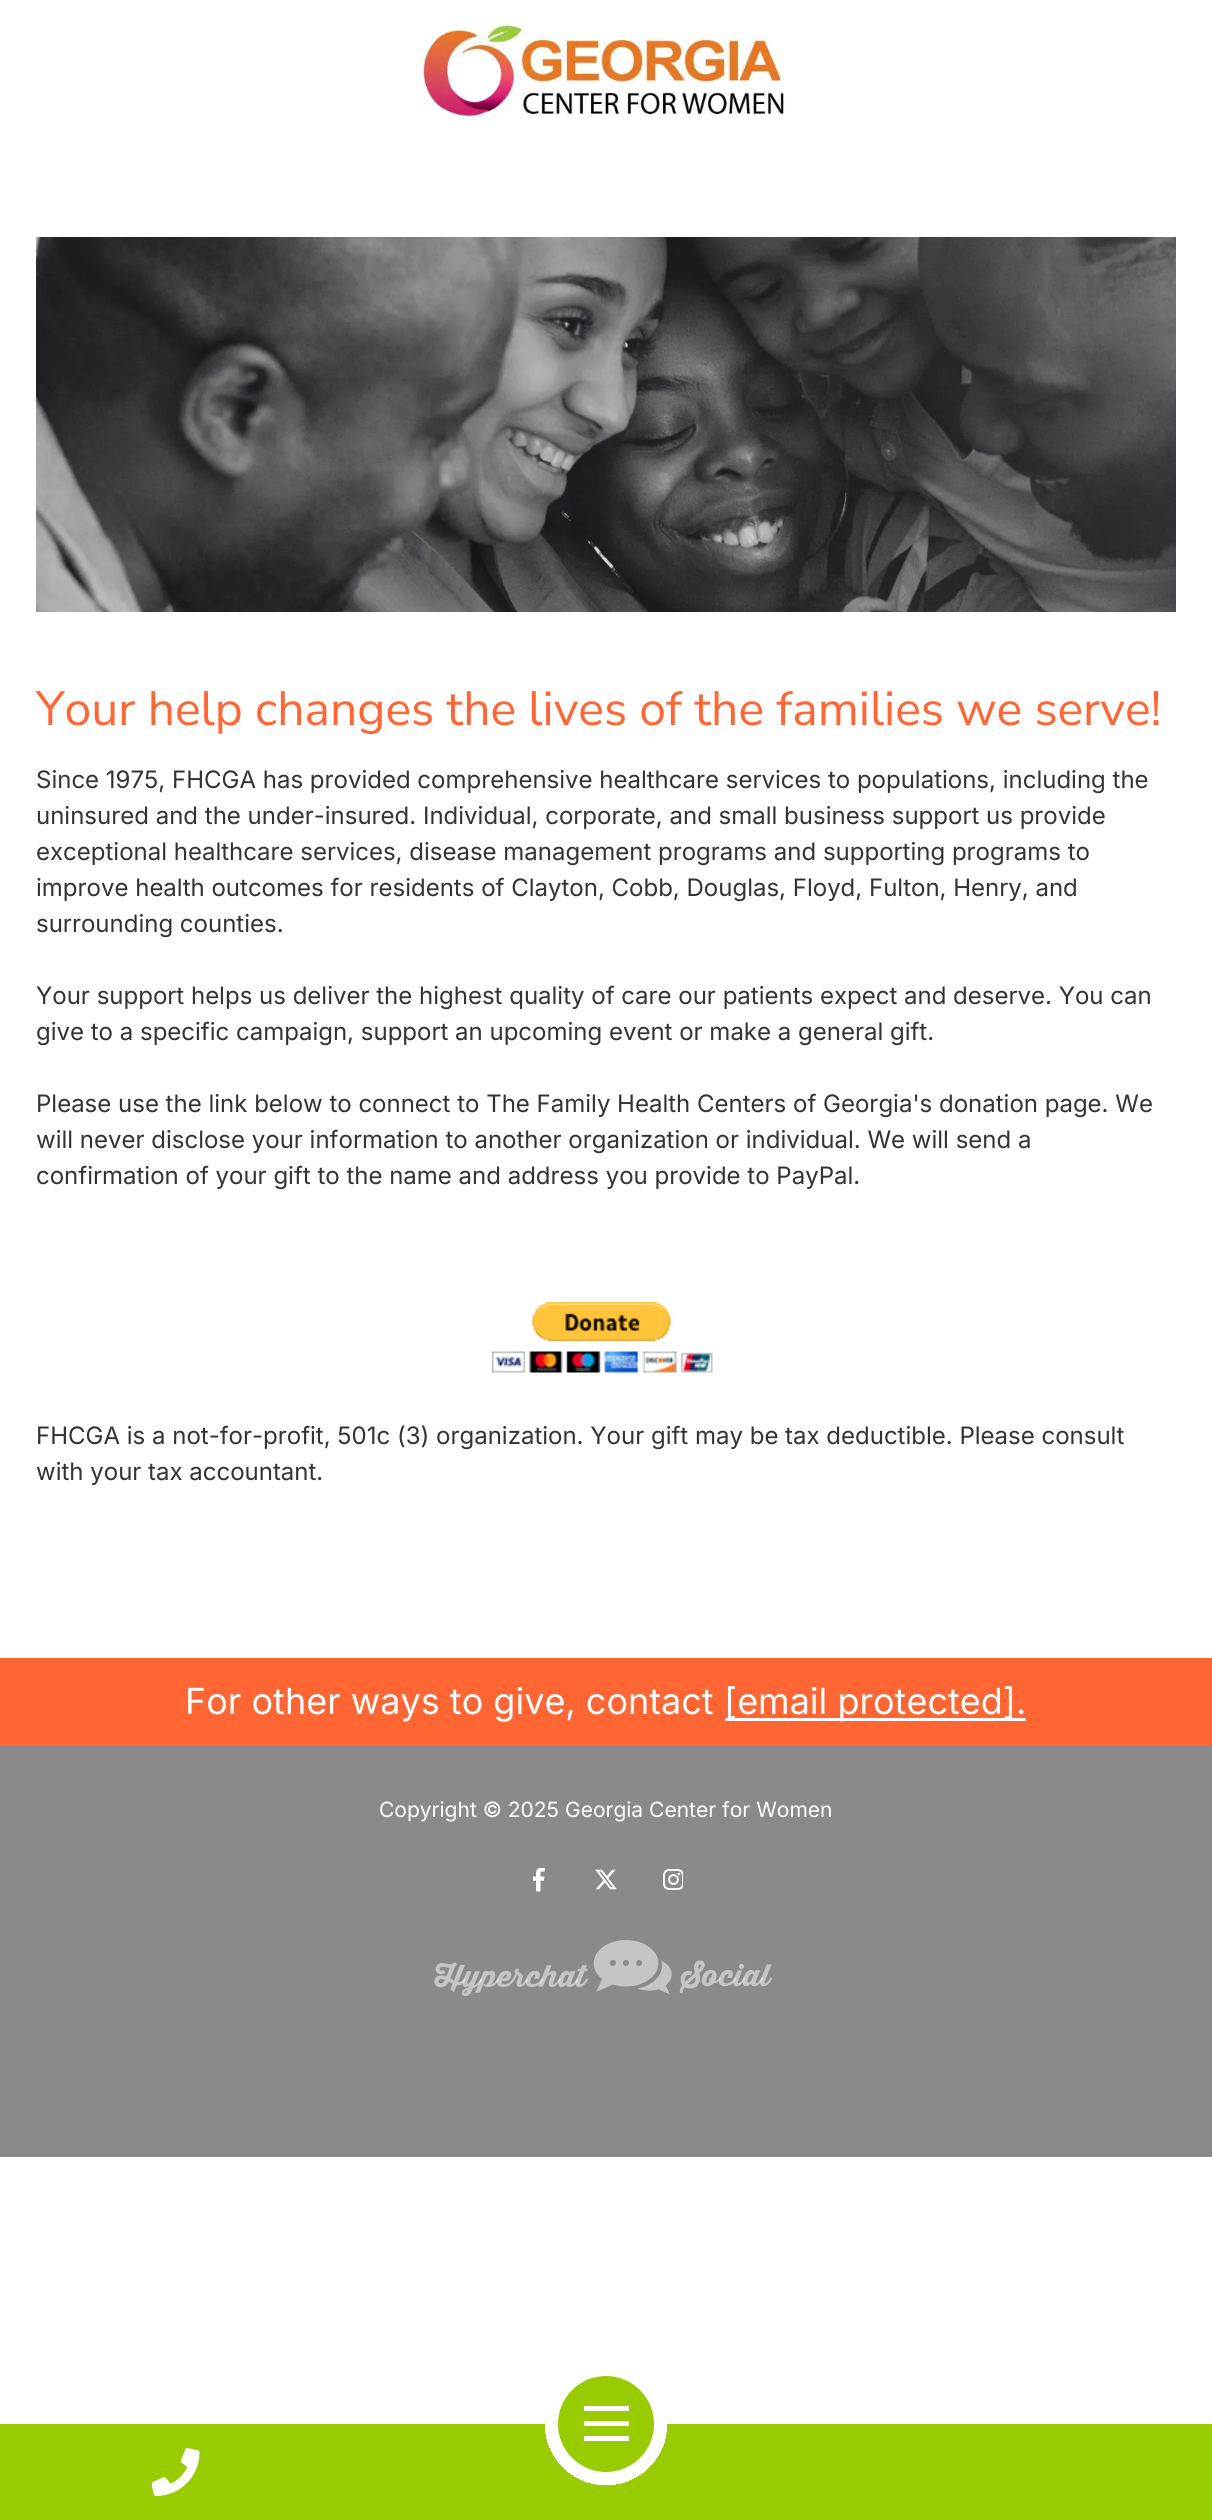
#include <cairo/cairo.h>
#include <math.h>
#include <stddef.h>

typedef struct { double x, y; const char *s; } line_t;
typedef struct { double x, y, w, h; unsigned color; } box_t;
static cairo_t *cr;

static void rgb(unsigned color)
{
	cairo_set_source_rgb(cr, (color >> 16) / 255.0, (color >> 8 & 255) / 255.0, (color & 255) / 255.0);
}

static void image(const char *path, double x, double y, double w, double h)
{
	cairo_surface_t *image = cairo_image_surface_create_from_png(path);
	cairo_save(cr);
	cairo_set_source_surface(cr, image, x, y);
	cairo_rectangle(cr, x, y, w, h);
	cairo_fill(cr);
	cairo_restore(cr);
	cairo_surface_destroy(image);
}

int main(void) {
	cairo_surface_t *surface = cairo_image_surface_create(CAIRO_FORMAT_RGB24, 1212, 2520);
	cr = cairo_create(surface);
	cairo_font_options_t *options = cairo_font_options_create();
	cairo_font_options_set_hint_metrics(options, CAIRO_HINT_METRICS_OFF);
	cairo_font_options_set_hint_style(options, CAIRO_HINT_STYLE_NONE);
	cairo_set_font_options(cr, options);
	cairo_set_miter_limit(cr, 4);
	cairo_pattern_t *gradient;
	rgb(0xffffff);
	cairo_paint(cr);
	image("img/1.png", 421, 24, 364, 97);
	image("img/2.png", 36, 237, 1140, 375);
	image("img/3.png", 492, 1302, 221, 71);
	{
		static const box_t items[] = {
			{0, 1658, 1212, 88, 0xff6633},
			{725, 1718, 301, 3, 0xffffff},
			{0, 1746, 1212, 411, 0x8a8a8a},
		};
		for (size_t i = 0; i < sizeof items / sizeof *items; i++) {
			rgb(items[i].color);
			cairo_rectangle(cr, items[i].x, items[i].y, items[i].w, items[i].h);
			cairo_fill(cr);
		}
	}
	image("img/4.png", 533, 1868, 12, 24);
	image("img/5.png", 595, 1869, 22, 21);
	image("img/6.png", 663, 1869, 20, 21);
	image("img/7.png", 434, 1940, 339, 57);
	gradient = cairo_pattern_create_radial(606, 2424, 0, 606, 2424, 614);
	cairo_pattern_add_color_stop_rgba(gradient, 0.1, 1, 1, 1, 1);
	cairo_pattern_add_color_stop_rgba(gradient, 0.1, 0.6, 0.8, 0, 1);
	cairo_set_source(cr, gradient);
	cairo_pattern_destroy(gradient);
	cairo_rectangle(cr, 0, 2424, 1212, 96);
	cairo_fill(cr);
	image("img/8.png", 152, 2448, 48, 48);
	rgb(0x99cc00);
	cairo_arc(cr, 606, 2424, 48, 0, 2 * M_PI);
	cairo_fill(cr);
	{
		static const box_t items[] = {
			{584, 2421, 45, 5, 0xffffff},
			{584, 2406, 45, 5, 0xffffff},
			{584, 2436, 45, 5, 0xffffff},
		};
		for (size_t i = 0; i < sizeof items / sizeof *items; i++) {
			rgb(items[i].color);
			cairo_rectangle(cr, items[i].x, items[i].y, items[i].w, items[i].h);
			cairo_fill(cr);
		}
	}
	cairo_select_font_face(cr, "Nunito Sans", CAIRO_FONT_SLANT_NORMAL, CAIRO_FONT_WEIGHT_NORMAL);
	cairo_set_font_size(cr, 48);
	rgb(0xff6633);
	cairo_move_to(cr, 36, 725);
	cairo_show_text(cr, "Your help changes the lives of the families we serve!");
	cairo_select_font_face(cr, "Inter", CAIRO_FONT_SLANT_NORMAL, CAIRO_FONT_WEIGHT_NORMAL);
	cairo_set_font_size(cr, 24);
	rgb(0x333333);
	{
		static const line_t items[] = {
			{36, 788, "Since 1975, FHCGA has provided comprehensive healthcare services to populations, including the"},
			{36, 824, "uninsured and the under-insured. Individual, corporate, and small business support us provide"},
			{36, 860, "exceptional healthcare services, disease management programs and supporting programs to"},
			{36, 896, "improve health outcomes for residents of Clayton, Cobb, Douglas, Floyd, Fulton, Henry, and"},
			{36, 932, "surrounding counties."},
			{36, 1004, "Your support helps us deliver the highest quality of care our patients expect and deserve. You can"},
			{36, 1040, "give to a specific campaign, support an upcoming event or make a general gift."},
			{36, 1112, "Please use the link below to connect to The Family Health Centers of Georgia's donation page. We"},
			{36, 1148, "will never disclose your information to another organization or individual. We will send a"},
			{36, 1184, "confirmation of your gift to the name and address you provide to PayPal."},
			{36, 1444, "FHCGA is a not-for-profit, 501c (3) organization. Your gift may be tax deductible. Please consult"},
			{36, 1480, "with your tax accountant."},
		};
		for (size_t i = 0; i < sizeof items / sizeof *items; i++) {
			cairo_move_to(cr, items[i].x, items[i].y);
			cairo_show_text(cr, items[i].s);
		}
	}
	cairo_set_font_size(cr, 36);
	rgb(0xffffff);
	cairo_move_to(cr, 185, 1714);
	cairo_show_text(cr, "For other ways to give, contact");
	cairo_move_to(cr, 724, 1714);
	cairo_show_text(cr, "[email protected].");
	cairo_set_font_size(cr, 21);
	cairo_move_to(cr, 379, 1817);
	cairo_show_text(cr, "Copyright © 2025 Georgia Center for Women");
	cairo_surface_write_to_png(surface, "page.png");
	cairo_font_options_destroy(options);
	cairo_destroy(cr);
	cairo_surface_destroy(surface);
	return 0;
}
